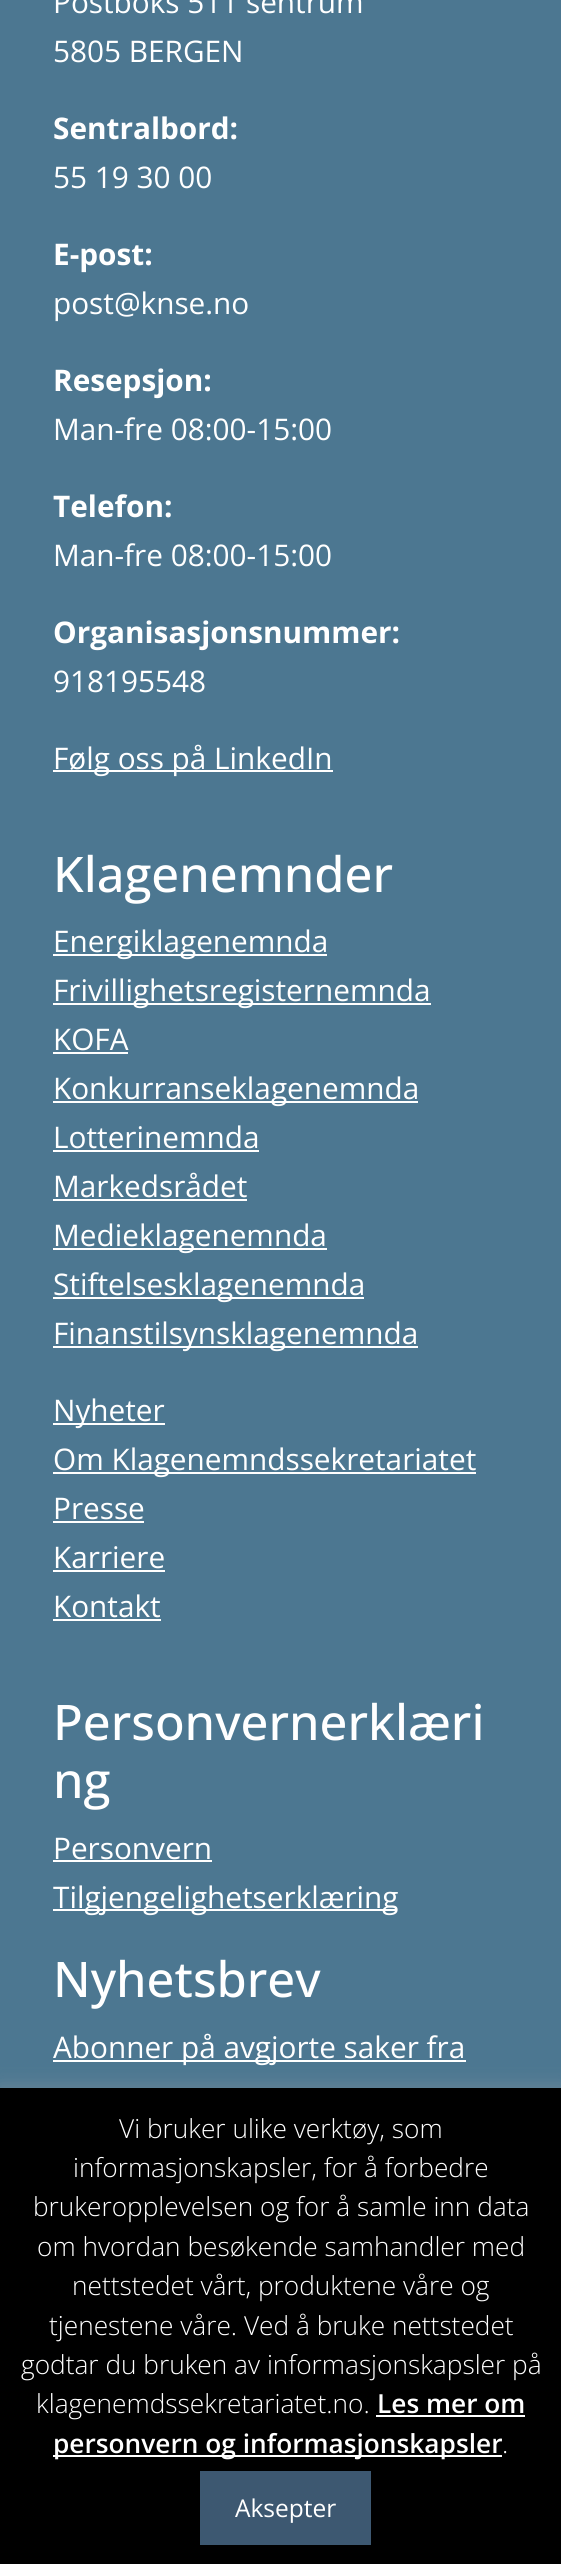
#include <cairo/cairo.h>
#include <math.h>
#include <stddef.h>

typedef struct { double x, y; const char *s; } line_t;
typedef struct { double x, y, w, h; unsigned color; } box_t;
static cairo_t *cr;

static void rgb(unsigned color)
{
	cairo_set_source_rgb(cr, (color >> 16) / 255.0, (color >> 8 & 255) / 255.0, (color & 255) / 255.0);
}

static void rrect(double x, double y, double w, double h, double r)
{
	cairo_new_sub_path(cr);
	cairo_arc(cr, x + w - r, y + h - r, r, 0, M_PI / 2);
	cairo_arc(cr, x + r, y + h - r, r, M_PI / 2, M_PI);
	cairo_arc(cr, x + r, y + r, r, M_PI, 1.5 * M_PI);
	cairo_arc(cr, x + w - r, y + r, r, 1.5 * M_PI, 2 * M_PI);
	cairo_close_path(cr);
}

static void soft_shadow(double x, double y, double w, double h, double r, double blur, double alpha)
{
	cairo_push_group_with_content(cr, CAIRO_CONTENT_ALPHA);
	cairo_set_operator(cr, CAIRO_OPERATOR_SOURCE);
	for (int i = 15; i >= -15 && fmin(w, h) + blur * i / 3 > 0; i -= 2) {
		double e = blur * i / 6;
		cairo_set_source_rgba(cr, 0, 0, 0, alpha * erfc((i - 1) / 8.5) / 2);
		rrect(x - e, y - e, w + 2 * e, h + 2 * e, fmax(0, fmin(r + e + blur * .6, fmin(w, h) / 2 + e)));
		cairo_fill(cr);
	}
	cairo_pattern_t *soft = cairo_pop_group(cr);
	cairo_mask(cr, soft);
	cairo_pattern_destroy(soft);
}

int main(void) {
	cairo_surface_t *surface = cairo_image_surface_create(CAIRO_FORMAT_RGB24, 561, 2564);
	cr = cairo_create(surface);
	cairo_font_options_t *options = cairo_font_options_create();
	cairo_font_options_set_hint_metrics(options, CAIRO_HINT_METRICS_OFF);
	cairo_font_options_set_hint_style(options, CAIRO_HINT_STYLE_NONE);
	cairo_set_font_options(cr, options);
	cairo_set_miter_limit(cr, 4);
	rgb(0x4c7791);
	cairo_paint(cr);
	{
		static const box_t items[] = {
			{53, 770, 280, 2, 0xffffff},
			{53, 954, 274, 2, 0xffffff},
			{53, 1003, 378, 2, 0xffffff},
			{53, 1052, 75, 2, 0xffffff},
			{53, 1101, 365, 2, 0xffffff},
			{53, 1150, 206, 2, 0xffffff},
			{53, 1199, 194, 2, 0xffffff},
			{53, 1248, 274, 2, 0xffffff},
			{53, 1297, 311, 2, 0xffffff},
			{53, 1346, 365, 2, 0xffffff},
			{53, 1423, 112, 2, 0xffffff},
			{53, 1472, 423, 2, 0xffffff},
			{53, 1521, 91, 2, 0xffffff},
			{53, 1570, 112, 2, 0xffffff},
			{53, 1619, 108, 2, 0xffffff},
			{53, 1860, 159, 2, 0xffffff},
			{53, 1909, 344, 2, 0xffffff},
			{53, 2060, 413, 2, 0xffffff},
		};
		for (size_t i = 0; i < sizeof items / sizeof *items; i++) {
			rgb(items[i].color);
			cairo_rectangle(cr, items[i].x, items[i].y, items[i].w, items[i].h);
			cairo_fill(cr);
		}
	}
	rgb(0xacabab);
	soft_shadow(0, 2086, 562, 478, 0, 9, 0.3);
	{
		static const box_t items[] = {
			{0, 2088, 561, 476, 0x000000},
			{376, 2415, 149, 2, 0xffffff},
			{53, 2455, 449, 2, 0xffffff},
			{200, 2471, 171, 74, 0x3d5871},
		};
		for (size_t i = 0; i < sizeof items / sizeof *items; i++) {
			rgb(items[i].color);
			cairo_rectangle(cr, items[i].x, items[i].y, items[i].w, items[i].h);
			cairo_fill(cr);
		}
	}
	cairo_select_font_face(cr, "Open Sans", CAIRO_FONT_SLANT_NORMAL, CAIRO_FONT_WEIGHT_NORMAL);
	cairo_set_font_size(cr, 29.75);
	rgb(0xffffff);
	cairo_move_to(cr, 53, 13);
	cairo_show_text(cr, "Postboks 511 sentrum");
	cairo_move_to(cr, 53, 62);
	cairo_show_text(cr, "5805 BERGEN");
	cairo_select_font_face(cr, "Open Sans", CAIRO_FONT_SLANT_NORMAL, CAIRO_FONT_WEIGHT_BOLD);
	cairo_move_to(cr, 53, 139);
	cairo_show_text(cr, "Sentralbord:");
	cairo_select_font_face(cr, "Open Sans", CAIRO_FONT_SLANT_NORMAL, CAIRO_FONT_WEIGHT_NORMAL);
	cairo_move_to(cr, 53, 188);
	cairo_show_text(cr, "55 19 30 00");
	cairo_select_font_face(cr, "Open Sans", CAIRO_FONT_SLANT_NORMAL, CAIRO_FONT_WEIGHT_BOLD);
	cairo_move_to(cr, 53, 265);
	cairo_show_text(cr, "E-post:");
	cairo_select_font_face(cr, "Open Sans", CAIRO_FONT_SLANT_NORMAL, CAIRO_FONT_WEIGHT_NORMAL);
	cairo_move_to(cr, 53, 314);
	cairo_show_text(cr, "post@knse.no");
	cairo_select_font_face(cr, "Open Sans", CAIRO_FONT_SLANT_NORMAL, CAIRO_FONT_WEIGHT_BOLD);
	cairo_move_to(cr, 53, 391);
	cairo_show_text(cr, "Resepsjon:");
	cairo_select_font_face(cr, "Open Sans", CAIRO_FONT_SLANT_NORMAL, CAIRO_FONT_WEIGHT_NORMAL);
	cairo_move_to(cr, 53, 440);
	cairo_show_text(cr, "Man-fre 08:00-15:00");
	cairo_select_font_face(cr, "Open Sans", CAIRO_FONT_SLANT_NORMAL, CAIRO_FONT_WEIGHT_BOLD);
	cairo_move_to(cr, 53, 517);
	cairo_show_text(cr, "Telefon:");
	cairo_select_font_face(cr, "Open Sans", CAIRO_FONT_SLANT_NORMAL, CAIRO_FONT_WEIGHT_NORMAL);
	cairo_move_to(cr, 53, 566);
	cairo_show_text(cr, "Man-fre 08:00-15:00");
	cairo_select_font_face(cr, "Open Sans", CAIRO_FONT_SLANT_NORMAL, CAIRO_FONT_WEIGHT_BOLD);
	cairo_move_to(cr, 53, 643);
	cairo_show_text(cr, "Organisasjonsnummer:");
	cairo_select_font_face(cr, "Open Sans", CAIRO_FONT_SLANT_NORMAL, CAIRO_FONT_WEIGHT_NORMAL);
	cairo_move_to(cr, 53, 692);
	cairo_show_text(cr, "918195548");
	cairo_move_to(cr, 53, 769);
	cairo_show_text(cr, "Følg oss på LinkedIn");
	cairo_select_font_face(cr, "Open Sans Medium", CAIRO_FONT_SLANT_NORMAL, CAIRO_FONT_WEIGHT_NORMAL);
	cairo_set_font_size(cr, 49);
	cairo_move_to(cr, 53, 892);
	cairo_show_text(cr, "Klagenemnder");
	cairo_select_font_face(cr, "Open Sans", CAIRO_FONT_SLANT_NORMAL, CAIRO_FONT_WEIGHT_NORMAL);
	cairo_set_font_size(cr, 29.75);
	{
		static const line_t items[] = {
			{53, 952, "Energiklagenemnda"},
			{53, 1001, "Frivillighetsregisternemnda"},
			{53, 1050, "KOFA"},
			{53, 1099, "Konkurranseklagenemnda"},
			{53, 1148, "Lotterinemnda"},
			{53, 1197, "Markedsrådet"},
			{53, 1246, "Medieklagenemnda"},
			{53, 1295, "Stiftelsesklagenemnda"},
			{53, 1344, "Finanstilsynsklagenemnda"},
			{53, 1421, "Nyheter"},
			{53, 1470, "Om Klagenemndssekretariatet"},
			{53, 1519, "Presse"},
			{53, 1568, "Karriere"},
			{53, 1617, "Kontakt"},
		};
		for (size_t i = 0; i < sizeof items / sizeof *items; i++) {
			cairo_move_to(cr, items[i].x, items[i].y);
			cairo_show_text(cr, items[i].s);
		}
	}
	cairo_select_font_face(cr, "Open Sans Medium", CAIRO_FONT_SLANT_NORMAL, CAIRO_FONT_WEIGHT_NORMAL);
	cairo_set_font_size(cr, 49);
	cairo_move_to(cr, 53, 1740);
	cairo_show_text(cr, "Personvernerklæri");
	cairo_move_to(cr, 53, 1798);
	cairo_show_text(cr, "ng");
	cairo_select_font_face(cr, "Open Sans", CAIRO_FONT_SLANT_NORMAL, CAIRO_FONT_WEIGHT_NORMAL);
	cairo_set_font_size(cr, 29.75);
	cairo_move_to(cr, 53, 1859);
	cairo_show_text(cr, "Personvern");
	cairo_move_to(cr, 53, 1908);
	cairo_show_text(cr, "Tilgjengelighetserklæring");
	cairo_select_font_face(cr, "Open Sans Medium", CAIRO_FONT_SLANT_NORMAL, CAIRO_FONT_WEIGHT_NORMAL);
	cairo_set_font_size(cr, 49);
	cairo_move_to(cr, 53, 1997);
	cairo_show_text(cr, "Nyhetsbrev");
	cairo_select_font_face(cr, "Open Sans", CAIRO_FONT_SLANT_NORMAL, CAIRO_FONT_WEIGHT_NORMAL);
	cairo_set_font_size(cr, 29.75);
	cairo_move_to(cr, 53, 2058);
	cairo_show_text(cr, "Abonner på avgjorte saker fra");
	cairo_select_font_face(cr, "Open Sans Light", CAIRO_FONT_SLANT_NORMAL, CAIRO_FONT_WEIGHT_NORMAL);
	cairo_set_font_size(cr, 26.25);
	{
		static const line_t items[] = {
			{119, 2138, "Vi bruker ulike verktøy, som"},
			{73, 2177, "informasjonskapsler, for å forbedre"},
			{33, 2216, "brukeropplevelsen og for å samle inn data"},
			{37, 2256, "om hvordan besøkende samhandler med"},
			{72, 2295, "nettstedet vårt, produktene våre og"},
			{49, 2335, "tjenestene våre. Ved å bruke nettstedet"},
			{21, 2374, "godtar du bruken av informasjonskapsler på"},
			{36, 2413, "klagenemdssekretariatet.no."},
		};
		for (size_t i = 0; i < sizeof items / sizeof *items; i++) {
			cairo_move_to(cr, items[i].x, items[i].y);
			cairo_show_text(cr, items[i].s);
		}
	}
	cairo_select_font_face(cr, "Open Sans SemiBold", CAIRO_FONT_SLANT_NORMAL, CAIRO_FONT_WEIGHT_NORMAL);
	cairo_move_to(cr, 377, 2413);
	cairo_show_text(cr, "Les mer om");
	cairo_move_to(cr, 53, 2453);
	cairo_show_text(cr, "personvern og informasjonskapsler");
	cairo_select_font_face(cr, "Open Sans Light", CAIRO_FONT_SLANT_NORMAL, CAIRO_FONT_WEIGHT_NORMAL);
	cairo_move_to(cr, 502, 2453);
	cairo_show_text(cr, ".");
	cairo_select_font_face(cr, "Open Sans", CAIRO_FONT_SLANT_NORMAL, CAIRO_FONT_WEIGHT_NORMAL);
	cairo_set_font_size(cr, 24.5);
	cairo_move_to(cr, 235, 2517);
	cairo_show_text(cr, "Aksepter");
	cairo_surface_write_to_png(surface, "page.png");
	cairo_font_options_destroy(options);
	cairo_destroy(cr);
	cairo_surface_destroy(surface);
	return 0;
}
